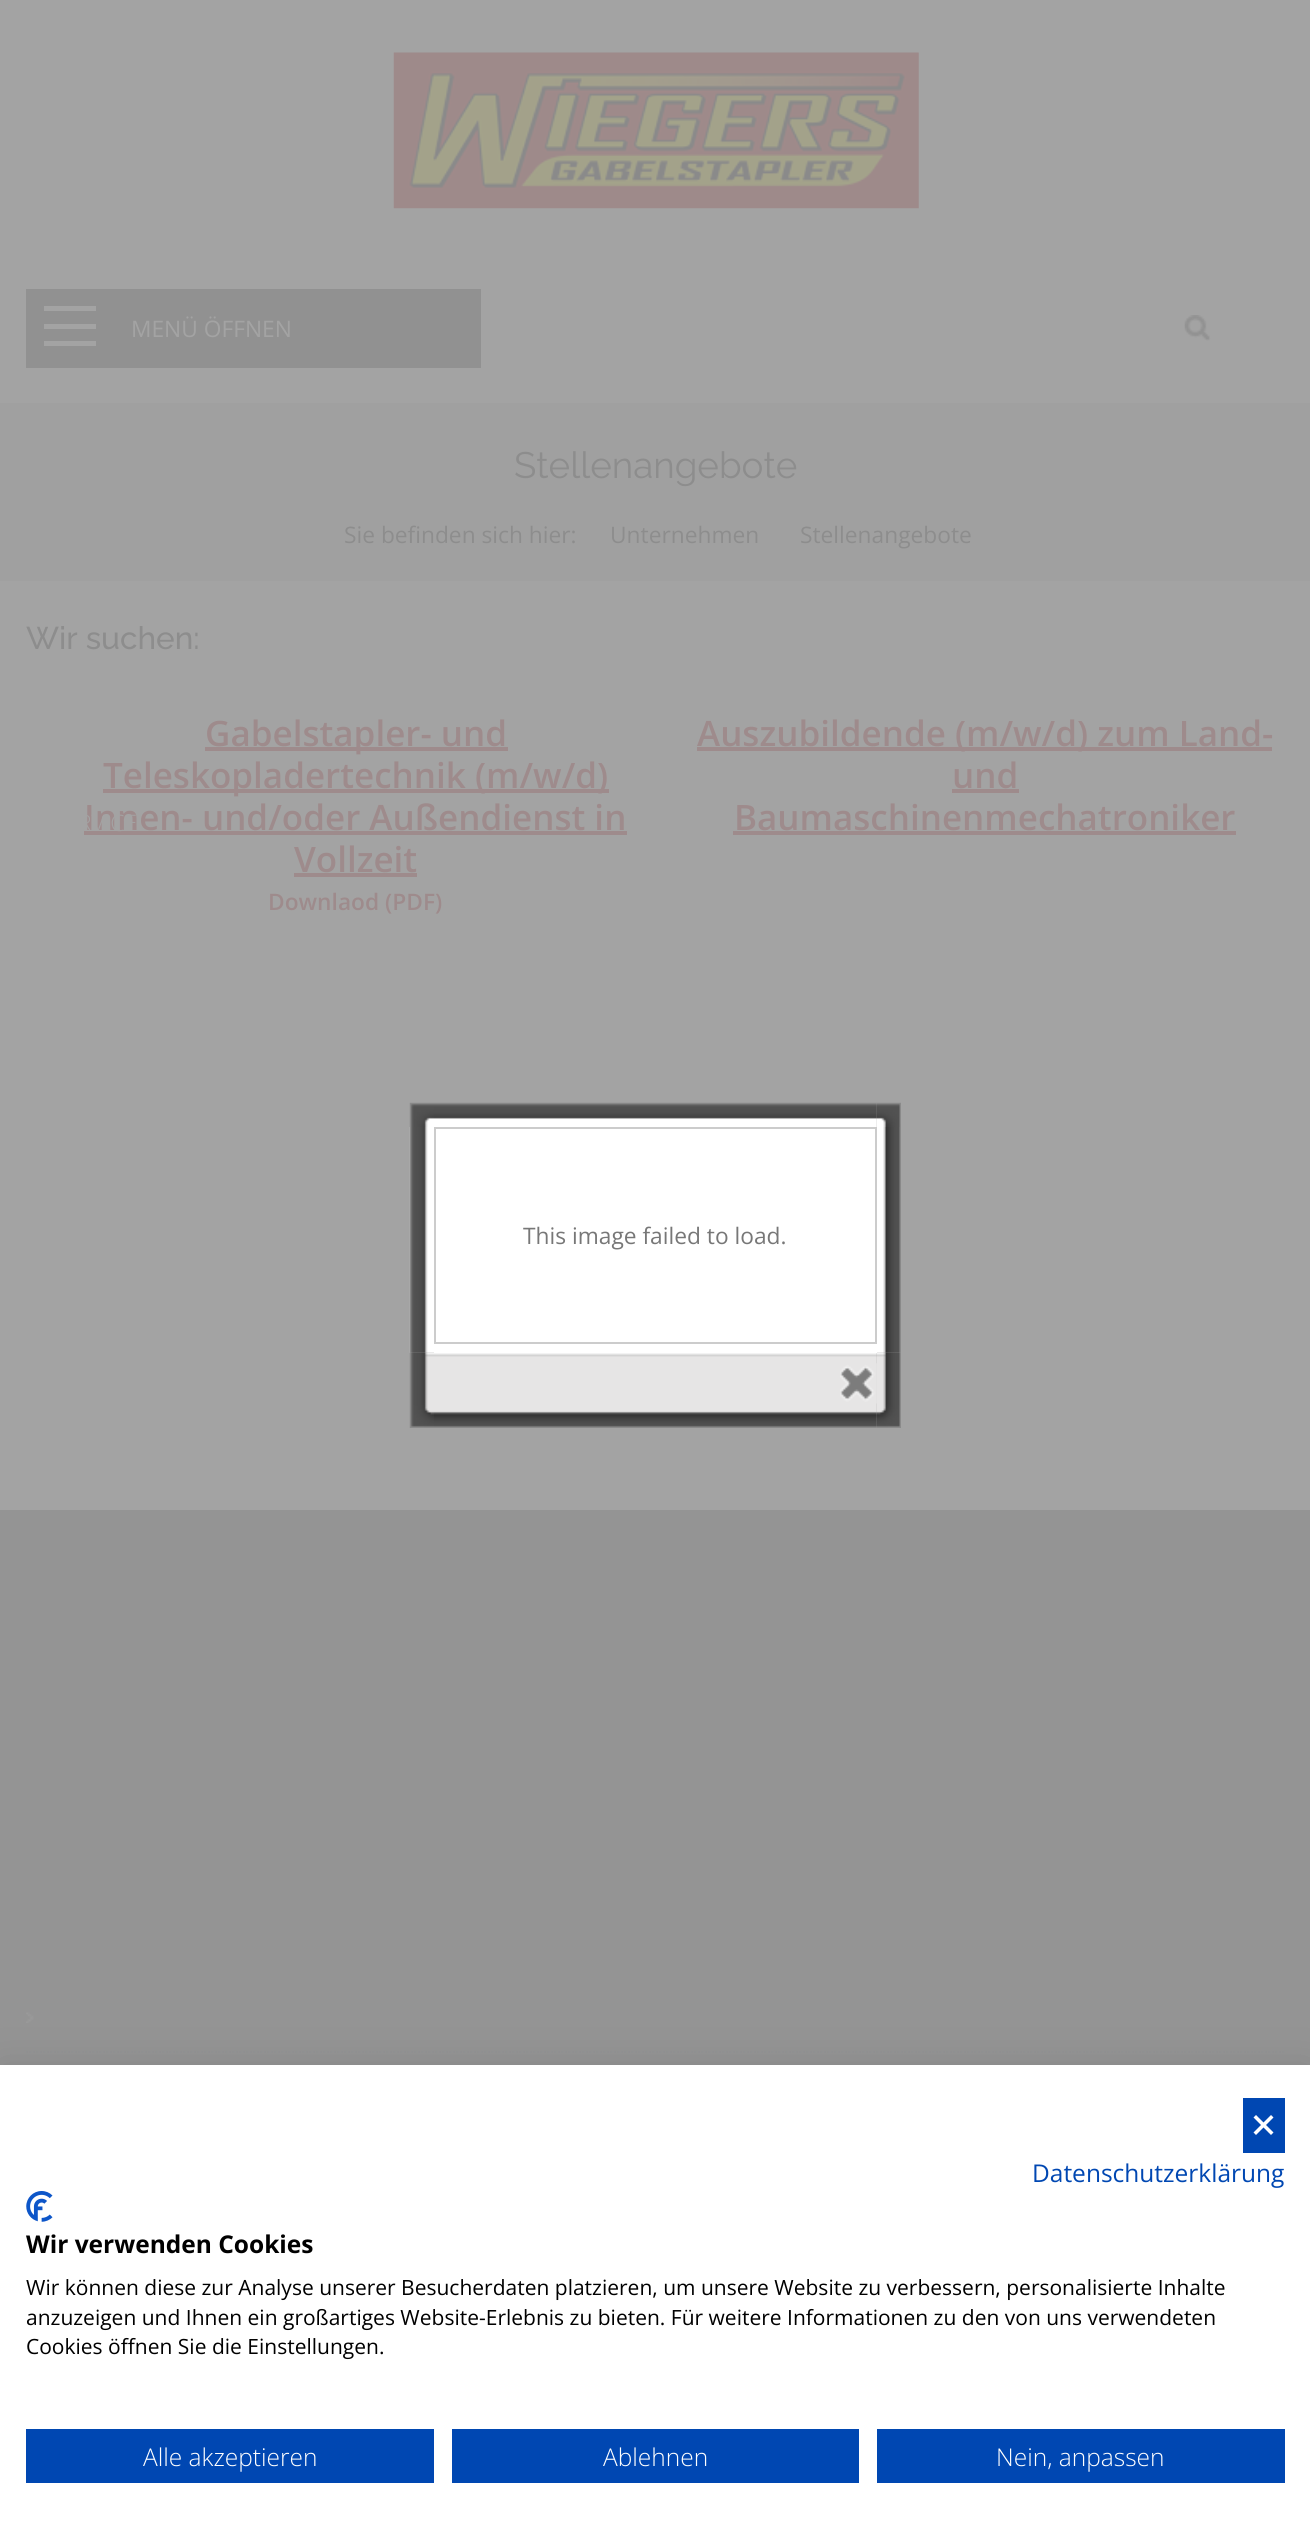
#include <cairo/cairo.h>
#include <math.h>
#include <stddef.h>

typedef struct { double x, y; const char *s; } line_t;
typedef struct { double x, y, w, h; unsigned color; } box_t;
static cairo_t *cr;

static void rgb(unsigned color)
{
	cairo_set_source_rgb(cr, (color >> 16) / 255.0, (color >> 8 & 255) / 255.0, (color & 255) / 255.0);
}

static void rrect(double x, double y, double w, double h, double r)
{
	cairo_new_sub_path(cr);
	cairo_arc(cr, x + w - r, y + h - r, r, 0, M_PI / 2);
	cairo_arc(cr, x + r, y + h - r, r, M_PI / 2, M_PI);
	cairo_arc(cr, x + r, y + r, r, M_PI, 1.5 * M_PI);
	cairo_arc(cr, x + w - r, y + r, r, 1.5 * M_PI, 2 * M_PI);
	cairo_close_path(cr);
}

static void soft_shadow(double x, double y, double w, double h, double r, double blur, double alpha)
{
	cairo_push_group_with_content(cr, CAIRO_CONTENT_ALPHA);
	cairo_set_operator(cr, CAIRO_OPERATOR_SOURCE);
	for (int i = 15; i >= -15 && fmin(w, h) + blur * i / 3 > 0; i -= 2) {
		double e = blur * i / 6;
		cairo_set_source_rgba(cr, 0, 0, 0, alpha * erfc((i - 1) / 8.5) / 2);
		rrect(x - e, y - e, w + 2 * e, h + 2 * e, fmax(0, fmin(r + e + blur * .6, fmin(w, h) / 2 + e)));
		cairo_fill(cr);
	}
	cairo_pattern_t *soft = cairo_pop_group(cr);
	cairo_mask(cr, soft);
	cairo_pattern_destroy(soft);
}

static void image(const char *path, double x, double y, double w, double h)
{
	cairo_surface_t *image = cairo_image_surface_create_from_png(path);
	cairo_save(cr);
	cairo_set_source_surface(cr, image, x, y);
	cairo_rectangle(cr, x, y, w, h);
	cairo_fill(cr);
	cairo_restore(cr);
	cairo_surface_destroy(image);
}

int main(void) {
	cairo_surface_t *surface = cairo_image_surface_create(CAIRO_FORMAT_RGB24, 1310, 2529);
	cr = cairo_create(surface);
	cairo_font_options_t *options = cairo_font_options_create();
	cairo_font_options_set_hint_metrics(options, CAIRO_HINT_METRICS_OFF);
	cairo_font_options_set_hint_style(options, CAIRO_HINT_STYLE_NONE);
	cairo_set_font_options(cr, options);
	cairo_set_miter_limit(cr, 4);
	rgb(0xa3a3a3);
	cairo_paint(cr);
	image("img/1.png", 393, 52, 526, 157);
	{
		static const box_t items[] = {
			{26, 289, 455, 79, 0x919191},
			{44, 341, 52, 5, 0xa3a3a3},
			{44, 324, 52, 5, 0xa3a3a3},
			{44, 306, 52, 5, 0xa3a3a3},
		};
		for (size_t i = 0; i < sizeof items / sizeof *items; i++) {
			rgb(items[i].color);
			cairo_rectangle(cr, items[i].x, items[i].y, items[i].w, items[i].h);
			cairo_fill(cr);
		}
	}
	image("img/2.png", 1184, 315, 27, 27);
	{
		static const box_t items[] = {
			{0, 403, 1310, 178, 0xa0a0a0},
			{205, 747, 303, 4, 0x9e8b8c},
			{103, 789, 506, 4, 0x9e8b8c},
			{84, 831, 543, 4, 0x9e8b8c},
			{294, 873, 123, 4, 0x9e8b8c},
			{697, 747, 575, 4, 0x9e8b8c},
			{952, 789, 67, 4, 0x9e8b8c},
			{733, 831, 503, 4, 0x9e8b8c},
			{0, 1510, 1310, 555, 0x949494},
		};
		for (size_t i = 0; i < sizeof items / sizeof *items; i++) {
			rgb(items[i].color);
			cairo_rectangle(cr, items[i].x, items[i].y, items[i].w, items[i].h);
			cairo_fill(cr);
		}
	}
	image("img/3.png", 26, 2012, 8, 11);
	cairo_new_path(cr);
	cairo_move_to(cr, 26, 2052);
	cairo_line_to(cr, 1284.5, 2052);
	rgb(0x919293);
	cairo_set_line_width(cr, 1.8);
	cairo_set_dash(cr, (double[]){1.75, 1.75}, 2, 0);
	cairo_stroke(cr);
	image("img/4.png", 409, 1102, 25, 25);
	image("img/5.png", 434, 1102, 443, 25);
	image("img/6.png", 876, 1102, 25, 25);
	image("img/7.png", 409, 1127, 25, 226);
	image("img/9.png", 877, 1127, 24, 226);
	image("img/11.png", 434, 1353, 443, 75);
	image("img/12.png", 876, 1352, 25, 76);
	rgb(0xffffff);
	cairo_rectangle(cr, 434, 1129, 443, 224);
	cairo_fill(cr);
	cairo_rectangle(cr, 435, 1128, 441, 215);
	rgb(0xcccccc);
	cairo_set_line_width(cr, 2);
	cairo_set_dash(cr, NULL, 0, 0);
	cairo_stroke(cr);
	image("img/8.png", 840, 1363, 37, 41);
	image("img/10.png", 409, 1352, 25, 76);
	rgb(0x000000);
	soft_shadow(0, 2065, 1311, 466, 0, 21, 0.1);
	rgb(0xffffff);
	cairo_rectangle(cr, 0, 2065, 1310, 464);
	cairo_fill(cr);
	rgb(0x0047b2);
	cairo_rectangle(cr, 1243, 2098, 42, 55);
	cairo_fill(cr);
	rgb(0xffffff);
	cairo_new_path(cr);
	cairo_move_to(cr, 1271, 2115);
	cairo_line_to(cr, 1273.5, 2117.5);
	cairo_line_to(cr, 1256, 2135);
	cairo_line_to(cr, 1253.5, 2132.5);
	cairo_close_path(cr);
	cairo_fill(cr);
	cairo_new_path(cr);
	cairo_move_to(cr, 1253.5, 2117.5);
	cairo_line_to(cr, 1256, 2115);
	cairo_line_to(cr, 1273.5, 2132.5);
	cairo_line_to(cr, 1271, 2135);
	cairo_close_path(cr);
	cairo_fill(cr);
	image("img/13.png", 26, 2191, 27, 31);
	{
		static const box_t items[] = {
			{26, 2429, 408, 54, 0x0047b2},
			{452, 2429, 407, 54, 0x0047b2},
			{877, 2429, 408, 54, 0x0047b2},
		};
		for (size_t i = 0; i < sizeof items / sizeof *items; i++) {
			rgb(items[i].color);
			cairo_rectangle(cr, items[i].x, items[i].y, items[i].w, items[i].h);
			cairo_fill(cr);
		}
	}
	cairo_select_font_face(cr, "Open Sans", CAIRO_FONT_SLANT_NORMAL, CAIRO_FONT_WEIGHT_NORMAL);
	cairo_set_font_size(cr, 22.75);
	rgb(0xa3a3a3);
	cairo_move_to(cr, 131, 337);
	cairo_show_text(cr, "MENÜ ÖFFNEN");
	cairo_select_font_face(cr, "Raleway Thin", CAIRO_FONT_SLANT_NORMAL, CAIRO_FONT_WEIGHT_NORMAL);
	cairo_set_font_size(cr, 36.75);
	rgb(0x8d8d8d);
	cairo_move_to(cr, 514, 478);
	cairo_show_text(cr, "Stellenangebote");
	cairo_select_font_face(cr, "Open Sans", CAIRO_FONT_SLANT_NORMAL, CAIRO_FONT_WEIGHT_NORMAL);
	cairo_set_font_size(cr, 22.75);
	{
		static const line_t items[] = {
			{344, 543, "Sie befinden sich hier:"},
			{610, 543, "Unternehmen"},
			{800, 543, "Stellenangebote"},
		};
		for (size_t i = 0; i < sizeof items / sizeof *items; i++) {
			cairo_move_to(cr, items[i].x, items[i].y);
			cairo_show_text(cr, items[i].s);
		}
	}
	cairo_select_font_face(cr, "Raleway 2 Thin", CAIRO_FONT_SLANT_NORMAL, CAIRO_FONT_WEIGHT_NORMAL);
	cairo_set_font_size(cr, 31.5);
	cairo_move_to(cr, 26, 649);
	cairo_show_text(cr, "Wir suchen:");
	cairo_select_font_face(cr, "Open Sans SemiBold", CAIRO_FONT_SLANT_NORMAL, CAIRO_FONT_WEIGHT_NORMAL);
	cairo_set_font_size(cr, 35);
	rgb(0x9e8b8c);
	{
		static const line_t items[] = {
			{205, 746, "Gabelstapler- und"},
			{103, 788, "Teleskopladertechnik (m/w/d)"},
			{84, 830, "Innen- und/oder Außendienst in"},
		};
		for (size_t i = 0; i < sizeof items / sizeof *items; i++) {
			cairo_move_to(cr, items[i].x, items[i].y);
			cairo_show_text(cr, items[i].s);
		}
	}
	cairo_select_font_face(cr, "Open Sans Light", CAIRO_FONT_SLANT_NORMAL, CAIRO_FONT_WEIGHT_NORMAL);
	cairo_set_font_size(cr, 22.75);
	rgb(0xa3a3a3);
	cairo_move_to(cr, 53, 831);
	cairo_show_text(cr, "SERVICE");
	cairo_select_font_face(cr, "Open Sans SemiBold", CAIRO_FONT_SLANT_NORMAL, CAIRO_FONT_WEIGHT_NORMAL);
	cairo_set_font_size(cr, 35);
	rgb(0x9e8b8c);
	{
		static const line_t items[] = {
			{294, 872, "Vollzeit"},
			{697, 746, "Auszubildende (m/w/d) zum Land-"},
			{952, 788, "und"},
			{734, 830, "Baumaschinenmechatroniker"},
		};
		for (size_t i = 0; i < sizeof items / sizeof *items; i++) {
			cairo_move_to(cr, items[i].x, items[i].y);
			cairo_show_text(cr, items[i].s);
		}
	}
	cairo_set_font_size(cr, 22.75);
	cairo_move_to(cr, 268, 910);
	cairo_show_text(cr, "Downlaod (PDF)");
	cairo_select_font_face(cr, "Open Sans", CAIRO_FONT_SLANT_NORMAL, CAIRO_FONT_WEIGHT_NORMAL);
	rgb(0x777777);
	cairo_move_to(cr, 523, 1244);
	cairo_show_text(cr, "This image failed to load.");
	cairo_set_font_size(cr, 24.5);
	rgb(0x0047b2);
	cairo_move_to(cr, 1032, 2182);
	cairo_show_text(cr, "Datenschutzerklärung");
	cairo_select_font_face(cr, "Open Sans", CAIRO_FONT_SLANT_NORMAL, CAIRO_FONT_WEIGHT_BOLD);
	rgb(0x000000);
	cairo_move_to(cr, 26, 2253);
	cairo_show_text(cr, "Wir verwenden Cookies");
	cairo_select_font_face(cr, "Open Sans", CAIRO_FONT_SLANT_NORMAL, CAIRO_FONT_WEIGHT_NORMAL);
	cairo_set_font_size(cr, 21);
	{
		static const line_t items[] = {
			{26, 2295, "Wir können diese zur Analyse unserer Besucherdaten platzieren, um unsere Website zu verbessern, personalisierte Inhalte"},
			{26, 2325, "anzuzeigen und Ihnen ein großartiges Website-Erlebnis zu bieten. Für weitere Informationen zu den von uns verwendeten"},
			{26, 2354, "Cookies öffnen Sie die Einstellungen."},
		};
		for (size_t i = 0; i < sizeof items / sizeof *items; i++) {
			cairo_move_to(cr, items[i].x, items[i].y);
			cairo_show_text(cr, items[i].s);
		}
	}
	cairo_select_font_face(cr, "Open Sans Light", CAIRO_FONT_SLANT_NORMAL, CAIRO_FONT_WEIGHT_NORMAL);
	cairo_set_font_size(cr, 24.5);
	rgb(0xffffff);
	{
		static const line_t items[] = {
			{143, 2466, "Alle akzeptieren"},
			{603, 2466, "Ablehnen"},
			{996, 2466, "Nein, anpassen"},
		};
		for (size_t i = 0; i < sizeof items / sizeof *items; i++) {
			cairo_move_to(cr, items[i].x, items[i].y);
			cairo_show_text(cr, items[i].s);
		}
	}
	cairo_surface_write_to_png(surface, "page.png");
	cairo_font_options_destroy(options);
	cairo_destroy(cr);
	cairo_surface_destroy(surface);
	return 0;
}
